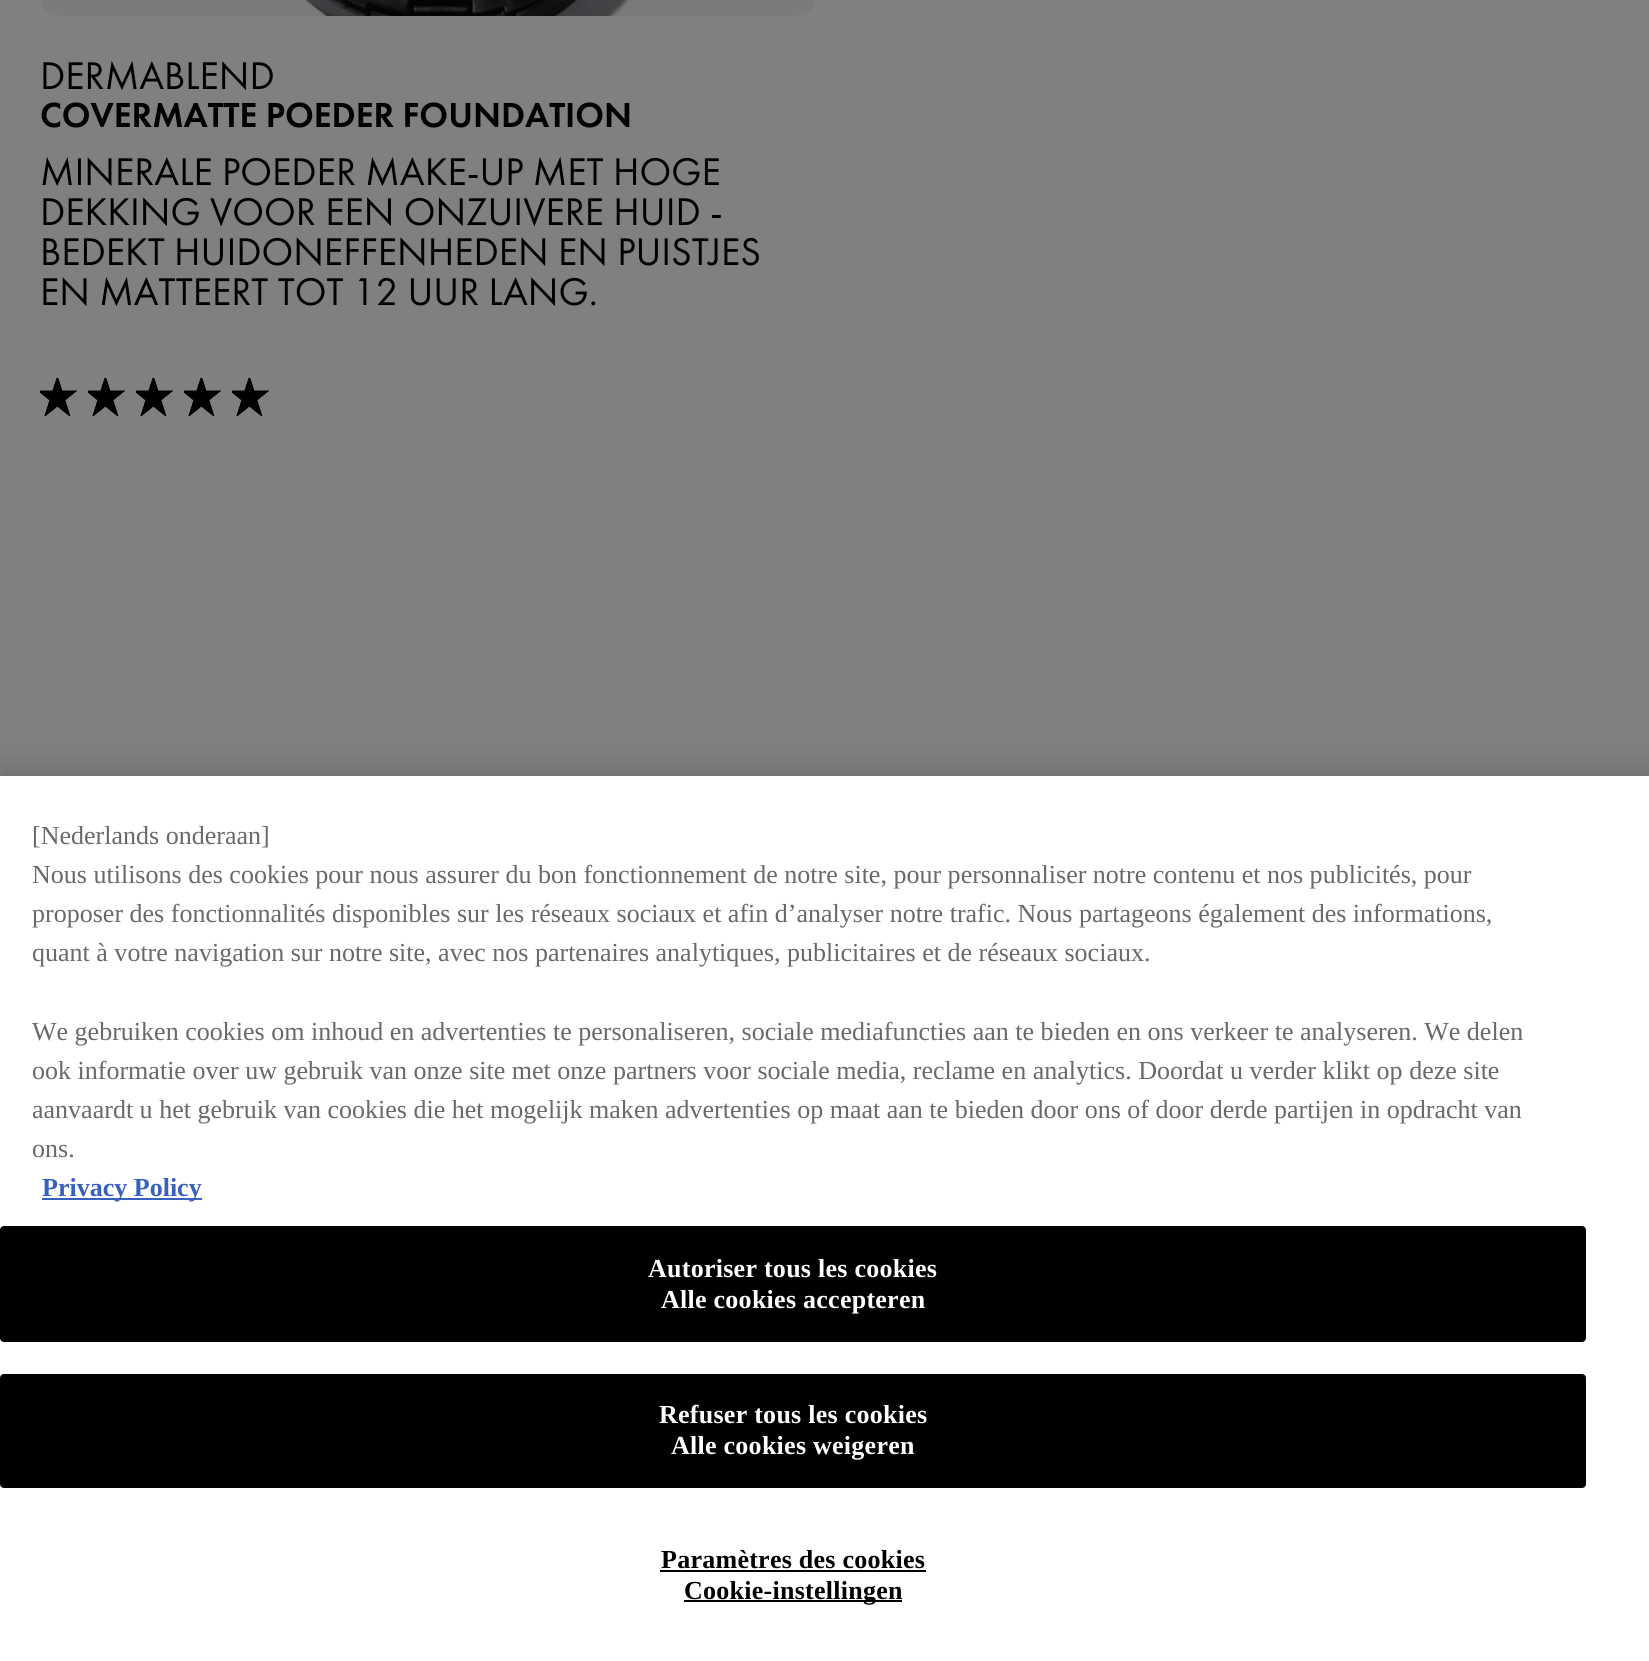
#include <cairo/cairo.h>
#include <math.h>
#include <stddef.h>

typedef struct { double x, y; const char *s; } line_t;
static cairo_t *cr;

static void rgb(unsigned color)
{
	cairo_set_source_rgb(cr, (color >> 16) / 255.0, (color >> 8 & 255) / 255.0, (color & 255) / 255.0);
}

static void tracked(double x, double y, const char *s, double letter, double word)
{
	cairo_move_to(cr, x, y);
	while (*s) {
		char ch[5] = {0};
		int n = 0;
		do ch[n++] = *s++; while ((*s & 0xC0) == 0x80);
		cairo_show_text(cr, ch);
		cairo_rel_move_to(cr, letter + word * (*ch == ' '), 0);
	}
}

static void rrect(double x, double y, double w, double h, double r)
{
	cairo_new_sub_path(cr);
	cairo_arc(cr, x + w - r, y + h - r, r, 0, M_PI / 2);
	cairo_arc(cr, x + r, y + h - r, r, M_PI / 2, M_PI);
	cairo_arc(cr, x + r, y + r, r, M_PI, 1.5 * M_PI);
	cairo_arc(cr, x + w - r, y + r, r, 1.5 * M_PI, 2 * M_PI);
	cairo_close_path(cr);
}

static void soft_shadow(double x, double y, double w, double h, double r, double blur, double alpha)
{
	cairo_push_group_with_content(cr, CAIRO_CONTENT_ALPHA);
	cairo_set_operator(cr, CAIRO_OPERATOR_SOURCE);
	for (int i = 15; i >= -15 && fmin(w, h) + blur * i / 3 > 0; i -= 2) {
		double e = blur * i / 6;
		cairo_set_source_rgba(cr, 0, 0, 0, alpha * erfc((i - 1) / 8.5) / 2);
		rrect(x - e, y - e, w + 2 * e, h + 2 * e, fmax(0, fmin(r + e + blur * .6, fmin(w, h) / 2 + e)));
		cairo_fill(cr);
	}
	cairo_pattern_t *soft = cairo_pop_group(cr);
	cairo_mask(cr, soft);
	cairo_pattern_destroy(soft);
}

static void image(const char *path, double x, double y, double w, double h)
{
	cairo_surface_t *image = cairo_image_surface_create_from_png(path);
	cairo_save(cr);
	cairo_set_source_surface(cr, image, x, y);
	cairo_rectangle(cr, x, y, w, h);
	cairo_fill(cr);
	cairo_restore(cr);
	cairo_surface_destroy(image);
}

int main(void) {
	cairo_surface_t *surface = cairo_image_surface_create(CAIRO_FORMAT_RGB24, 1649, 1661);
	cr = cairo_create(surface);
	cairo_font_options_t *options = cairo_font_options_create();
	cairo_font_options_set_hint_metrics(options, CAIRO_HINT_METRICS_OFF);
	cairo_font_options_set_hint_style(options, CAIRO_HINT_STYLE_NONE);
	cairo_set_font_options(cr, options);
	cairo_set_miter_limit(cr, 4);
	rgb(0x808080);
	cairo_paint(cr);
	rgb(0x7b7b7b);
	rrect(40, -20, 776, 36, 20);
	cairo_fill(cr);
	image("img/1.png", 296, 0, 335, 16);
	image("img/2.png", 40, 378, 37, 38);
	image("img/3.png", 40, 378, 37, 38);
	image("img/2.png", 88, 378, 37, 38);
	image("img/3.png", 88, 378, 37, 38);
	image("img/2.png", 136, 378, 37, 38);
	image("img/3.png", 136, 378, 37, 38);
	image("img/2.png", 184, 378, 37, 38);
	image("img/3.png", 184, 378, 37, 38);
	image("img/2.png", 232, 378, 37, 38);
	image("img/3.png", 232, 378, 37, 38);
	rgb(0x000000);
	soft_shadow(0, 776, 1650, 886, 0, 18, 0.2);
	rgb(0xffffff);
	cairo_rectangle(cr, 0, 776, 1649, 885);
	cairo_fill(cr);
	rgb(0x3860be);
	cairo_rectangle(cr, 42, 1198, 160, 2);
	cairo_fill(cr);
	rgb(0x000000);
	rrect(1, 1227, 1584, 114, 3);
	cairo_fill_preserve(cr);
	cairo_stroke(cr);
	rrect(1, 1375, 1584, 112, 3);
	cairo_fill_preserve(cr);
	cairo_stroke(cr);
	cairo_rectangle(cr, 660, 1570, 266, 2);
	cairo_fill(cr);
	cairo_rectangle(cr, 684, 1600, 218, 2);
	cairo_fill(cr);
	cairo_select_font_face(cr, "Futura PT", CAIRO_FONT_SLANT_NORMAL, CAIRO_FONT_WEIGHT_NORMAL);
	cairo_set_font_size(cr, 40);
	cairo_move_to(cr, 40, 89);
	cairo_show_text(cr, "DERMABLEND");
	cairo_select_font_face(cr, "Futura PT Medium", CAIRO_FONT_SLANT_NORMAL, CAIRO_FONT_WEIGHT_NORMAL);
	cairo_set_font_size(cr, 36);
	cairo_move_to(cr, 40, 127);
	cairo_show_text(cr, "COVERMATTE POEDER FOUNDATION");
	cairo_select_font_face(cr, "Futura PT", CAIRO_FONT_SLANT_NORMAL, CAIRO_FONT_WEIGHT_NORMAL);
	cairo_set_font_size(cr, 40);
	{
		static const line_t items[] = {
			{40, 185, "MINERALE POEDER MAKE-UP MET HOGE"},
			{40, 225, "DEKKING VOOR EEN ONZUIVERE HUID -"},
			{40, 265, "BEDEKT HUIDONEFFENHEDEN EN PUISTJES"},
			{40, 305, "EN MATTEERT TOT 12 UUR LANG."},
		};
		for (size_t i = 0; i < sizeof items / sizeof *items; i++) {
			cairo_move_to(cr, items[i].x, items[i].y);
			cairo_show_text(cr, items[i].s);
		}
	}
	cairo_select_font_face(cr, "Liberation Serif", CAIRO_FONT_SLANT_NORMAL, CAIRO_FONT_WEIGHT_NORMAL);
	cairo_set_font_size(cr, 26.02);
	rgb(0x696969);
	{
		static const line_t items[] = {
			{32, 844, "[Nederlands onderaan]"},
			{32, 883, "Nous utilisons des cookies pour nous assurer du bon fonctionnement de notre site, pour personnaliser notre contenu et nos publicités, pour"},
			{32, 922, "proposer des fonctionnalités disponibles sur les réseaux sociaux et afin d’analyser notre trafic. Nous partageons également des informations,"},
			{32, 961, "quant à votre navigation sur notre site, avec nos partenaires analytiques, publicitaires et de réseaux sociaux."},
			{32, 1040, "We gebruiken cookies om inhoud en advertenties te personaliseren, sociale mediafuncties aan te bieden en ons verkeer te analyseren. We delen"},
			{32, 1079, "ook informatie over uw gebruik van onze site met onze partners voor sociale media, reclame en analytics. Doordat u verder klikt op deze site"},
			{32, 1118, "aanvaardt u het gebruik van cookies die het mogelijk maken advertenties op maat aan te bieden door ons of door derde partijen in opdracht van"},
			{32, 1157, "ons."},
		};
		for (size_t i = 0; i < sizeof items / sizeof *items; i++) {
			cairo_move_to(cr, items[i].x, items[i].y);
			cairo_show_text(cr, items[i].s);
		}
	}
	cairo_select_font_face(cr, "Liberation Serif", CAIRO_FONT_SLANT_NORMAL, CAIRO_FONT_WEIGHT_BOLD);
	rgb(0x3860be);
	cairo_move_to(cr, 42, 1196);
	cairo_show_text(cr, "Privacy Policy");
	rgb(0xffffff);
	{
		static const line_t items[] = {
			{648, 1277, "Autoriser tous les cookies"},
			{661, 1308, "Alle cookies accepteren"},
			{659, 1423, "Refuser tous les cookies"},
			{671, 1454, "Alle cookies weigeren"},
		};
		for (size_t i = 0; i < sizeof items / sizeof *items; i++) {
			tracked(items[i].x, items[i].y, items[i].s, 0.25, 0);
		}
	}
	rgb(0x000000);
	tracked(661, 1568, "Paramètres des cookies", 0.25, 0);
	tracked(684, 1599, "Cookie-instellingen", 0.25, 0);
	cairo_surface_write_to_png(surface, "page.png");
	cairo_font_options_destroy(options);
	cairo_destroy(cr);
	cairo_surface_destroy(surface);
	return 0;
}
